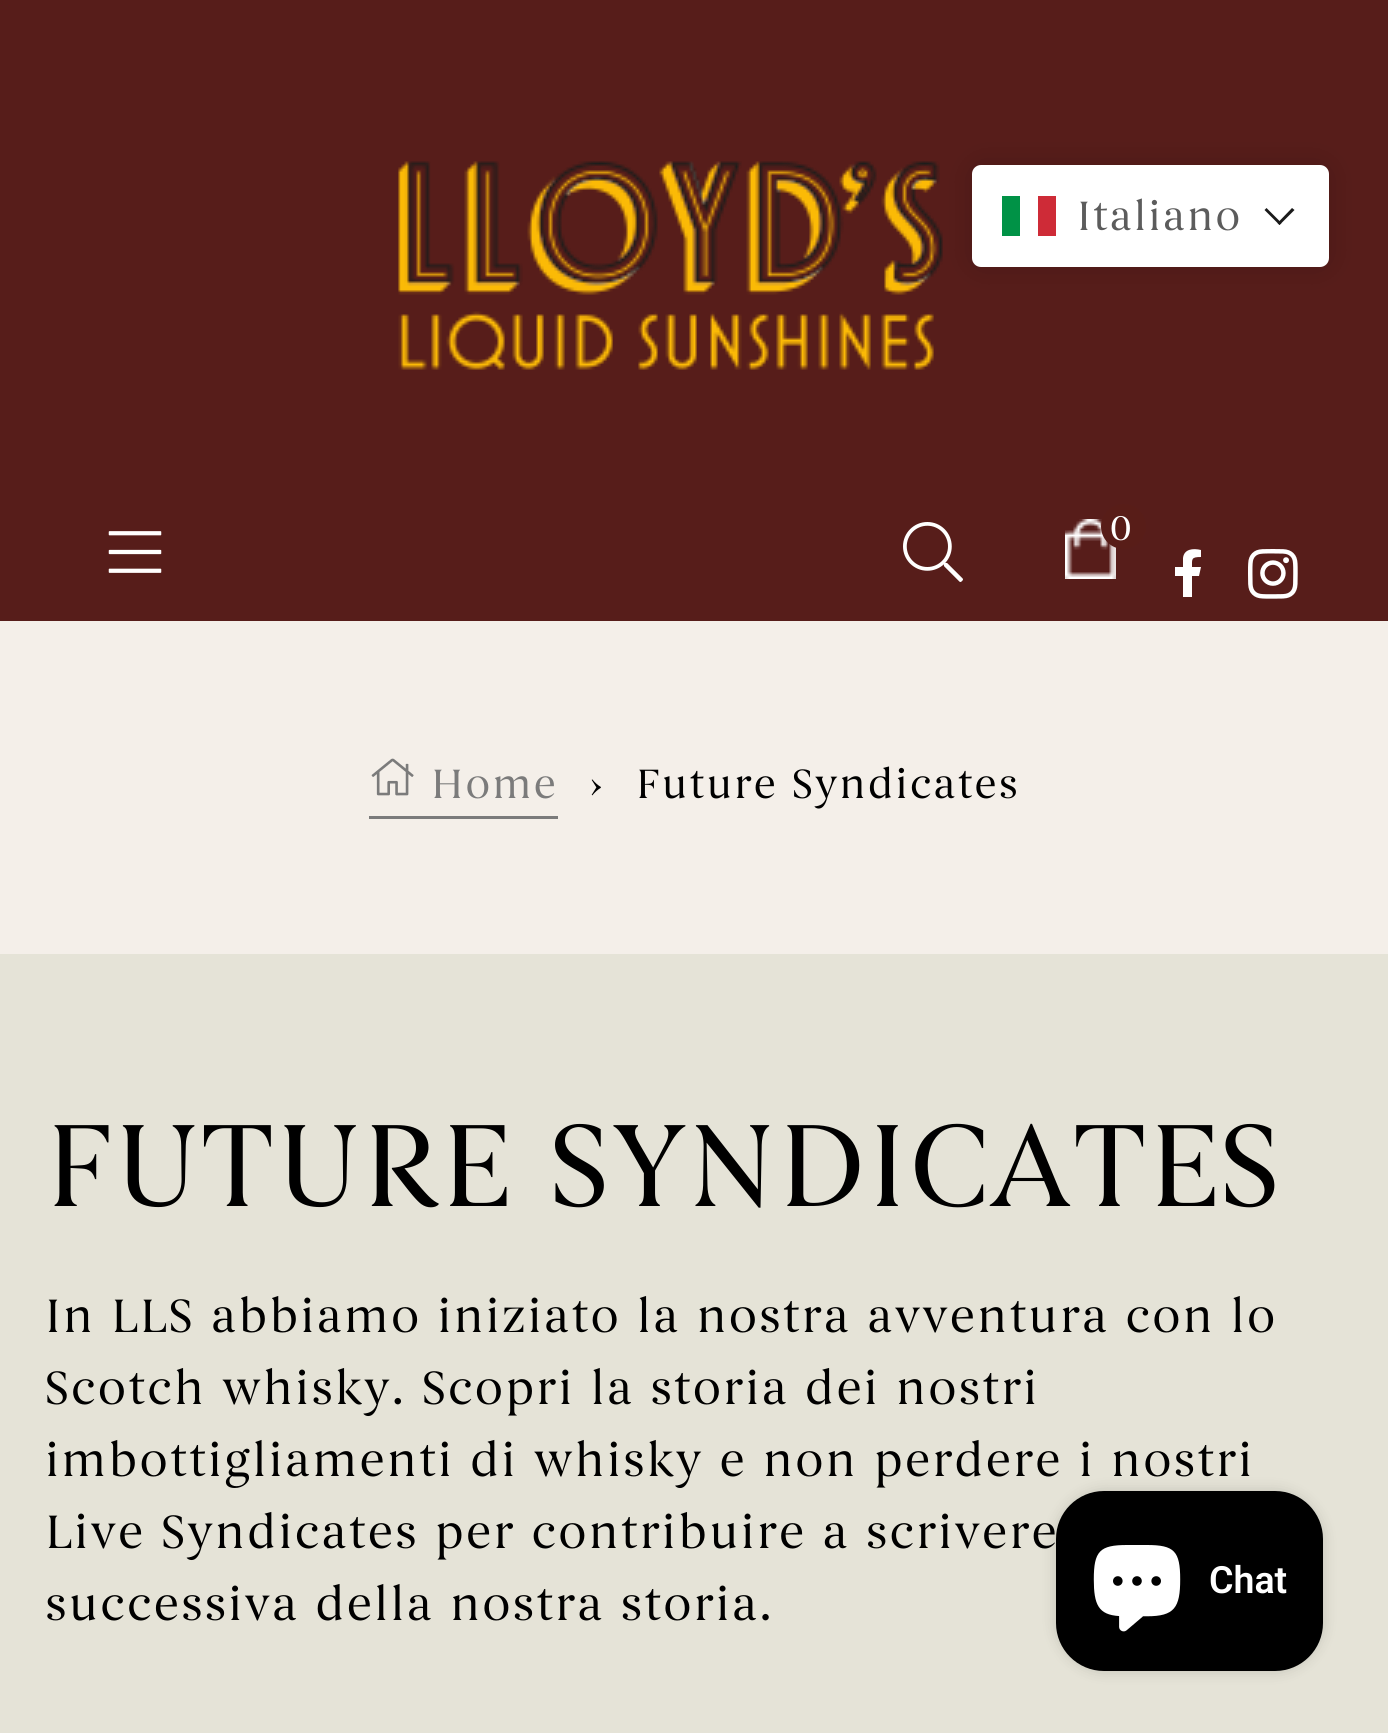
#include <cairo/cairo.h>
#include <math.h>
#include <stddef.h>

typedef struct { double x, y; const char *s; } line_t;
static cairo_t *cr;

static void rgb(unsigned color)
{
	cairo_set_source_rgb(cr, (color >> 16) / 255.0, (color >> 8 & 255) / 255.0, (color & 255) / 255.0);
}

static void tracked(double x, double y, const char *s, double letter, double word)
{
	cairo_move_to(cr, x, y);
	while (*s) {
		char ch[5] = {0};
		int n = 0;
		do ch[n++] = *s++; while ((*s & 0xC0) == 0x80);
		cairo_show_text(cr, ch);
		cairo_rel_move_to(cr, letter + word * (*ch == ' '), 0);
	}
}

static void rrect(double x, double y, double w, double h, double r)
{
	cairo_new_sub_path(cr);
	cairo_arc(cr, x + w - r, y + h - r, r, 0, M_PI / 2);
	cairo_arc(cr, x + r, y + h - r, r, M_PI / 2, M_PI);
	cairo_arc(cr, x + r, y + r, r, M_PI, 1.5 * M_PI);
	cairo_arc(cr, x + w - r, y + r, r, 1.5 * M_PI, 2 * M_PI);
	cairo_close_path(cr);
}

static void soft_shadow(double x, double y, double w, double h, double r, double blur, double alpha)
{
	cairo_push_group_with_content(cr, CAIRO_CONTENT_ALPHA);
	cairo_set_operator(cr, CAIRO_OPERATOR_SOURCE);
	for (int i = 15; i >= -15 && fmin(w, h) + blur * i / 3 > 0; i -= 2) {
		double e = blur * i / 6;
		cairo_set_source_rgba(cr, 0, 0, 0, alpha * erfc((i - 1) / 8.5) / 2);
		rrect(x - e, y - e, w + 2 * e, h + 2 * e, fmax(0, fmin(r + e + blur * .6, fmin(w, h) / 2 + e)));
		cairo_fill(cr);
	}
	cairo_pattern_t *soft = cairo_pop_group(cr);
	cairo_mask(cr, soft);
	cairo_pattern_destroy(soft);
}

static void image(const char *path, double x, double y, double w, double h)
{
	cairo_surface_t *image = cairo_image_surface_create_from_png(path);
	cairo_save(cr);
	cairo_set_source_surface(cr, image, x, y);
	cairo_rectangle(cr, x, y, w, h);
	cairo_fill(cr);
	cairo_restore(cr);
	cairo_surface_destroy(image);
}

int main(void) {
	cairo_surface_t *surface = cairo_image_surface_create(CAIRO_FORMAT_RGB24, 1388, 1733);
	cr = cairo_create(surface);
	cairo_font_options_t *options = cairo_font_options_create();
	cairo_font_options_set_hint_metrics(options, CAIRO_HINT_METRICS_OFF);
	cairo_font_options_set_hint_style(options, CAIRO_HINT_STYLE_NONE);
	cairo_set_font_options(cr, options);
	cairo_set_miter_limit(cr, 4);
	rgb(0xf4efe9);
	cairo_paint(cr);
	rgb(0x571d1a);
	cairo_rectangle(cr, 0, 0, 1388, 621);
	cairo_fill(cr);
	image("img/1.png", 398, 161, 545, 209);
	rgb(0x000000);
	soft_shadow(972, 165, 357, 102, 9, 15, 0.15);
	rgb(0xffffff);
	rrect(972, 165, 357, 102, 9);
	cairo_fill(cr);
	rgb(0x009246);
	cairo_rectangle(cr, 1002, 196, 18, 40);
	cairo_fill(cr);
	rgb(0xce2b37);
	cairo_rectangle(cr, 1038, 196, 18, 40);
	cairo_fill(cr);
	rgb(0x1a1a1a);
	cairo_new_path(cr);
	cairo_move_to(cr, 1292, 208);
	cairo_line_to(cr, 1294.5, 210);
	cairo_line_to(cr, 1279.5, 225);
	cairo_line_to(cr, 1277.5, 223);
	cairo_close_path(cr);
	cairo_fill(cr);
	cairo_new_path(cr);
	cairo_move_to(cr, 1266.5, 208);
	cairo_line_to(cr, 1281.5, 223);
	cairo_line_to(cr, 1279.5, 225);
	cairo_line_to(cr, 1264.5, 210);
	cairo_close_path(cr);
	cairo_fill(cr);
	image("img/2.png", 903, 522, 60, 60);
	image("img/3.png", 1065, 519, 51, 60);
	rgb(0x581d18);
	cairo_arc(cr, 1123.5, 526.5, 22.5, 0, 2 * M_PI);
	cairo_fill(cr);
	rgb(0xffffff);
	cairo_new_path(cr);
	cairo_move_to(cr, 1199, 576);
	cairo_line_to(cr, 1201, 567);
	cairo_line_to(cr, 1192, 567);
	cairo_curve_to(cr, 1192, 559, 1191, 557, 1201, 557);
	cairo_line_to(cr, 1201, 550);
	cairo_curve_to(cr, 1193, 548, 1184, 549, 1183, 558);
	cairo_line_to(cr, 1183, 567);
	cairo_line_to(cr, 1175, 567);
	cairo_line_to(cr, 1175, 576);
	cairo_line_to(cr, 1183, 576);
	cairo_line_to(cr, 1183, 597);
	cairo_line_to(cr, 1192, 597);
	cairo_line_to(cr, 1192, 576);
	cairo_close_path(cr);
	cairo_fill(cr);
	image("img/4.png", 1248, 549, 50, 50);
	image("img/5.png", 108, 531, 54, 42);
	rgb(0x7b7b7b);
	cairo_rectangle(cr, 369, 816, 189, 3);
	cairo_fill(cr);
	image("img/6.png", 371, 758, 43, 38);
	rgb(0xe5e3d7);
	cairo_rectangle(cr, 0, 954, 1388, 779);
	cairo_fill(cr);
	rgb(0x000000);
	soft_shadow(1056, 1491, 267, 180, 48, 7.5, 0.15);
	rgb(0x000000);
	rrect(1056, 1491, 267, 180, 48);
	cairo_fill(cr);
	image("img/7.png", 1093, 1545, 88, 87);
	cairo_select_font_face(cr, "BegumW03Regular", CAIRO_FONT_SLANT_NORMAL, CAIRO_FONT_WEIGHT_NORMAL);
	cairo_set_font_size(cr, 42);
	rgb(0x5c5c5c);
	tracked(1077, 230, "Italiano", 1.8, 0);
	cairo_set_font_size(cr, 36);
	rgb(0xffffff);
	tracked(1110, 540, "0", 1.8, 0);
	cairo_set_font_size(cr, 42);
	rgb(0x7b7b7b);
	tracked(431, 798, "Home", 1.8, 0);
	rgb(0x000000);
	tracked(590, 798, "›", 1.8, 0);
	tracked(636, 798, "Future Syndicates", 1.8, 0);
	cairo_set_font_size(cr, 120);
	tracked(45, 1206, "FUTURE SYNDICATES", 1.8, 0);
	cairo_set_font_size(cr, 48);
	{
		static const line_t items[] = {
			{45, 1332, "In LLS abbiamo iniziato la nostra avventura con lo"},
			{45, 1404, "Scotch whisky. Scopri la storia dei nostri"},
			{45, 1476, "imbottigliamenti di whisky e non perdere i nostri"},
			{45, 1548, "Live Syndicates per contribuire a scrivere"},
			{45, 1620, "successiva della nostra storia."},
		};
		for (size_t i = 0; i < sizeof items / sizeof *items; i++) {
			tracked(items[i].x, items[i].y, items[i].s, 1.8, 0);
		}
	}
	cairo_select_font_face(cr, "Roboto SemiBold", CAIRO_FONT_SLANT_NORMAL, CAIRO_FONT_WEIGHT_NORMAL);
	cairo_set_font_size(cr, 37.5);
	rgb(0xffffff);
	cairo_move_to(cr, 1209, 1593);
	cairo_show_text(cr, "Chat");
	cairo_surface_write_to_png(surface, "page.png");
	cairo_font_options_destroy(options);
	cairo_destroy(cr);
	cairo_surface_destroy(surface);
	return 0;
}
